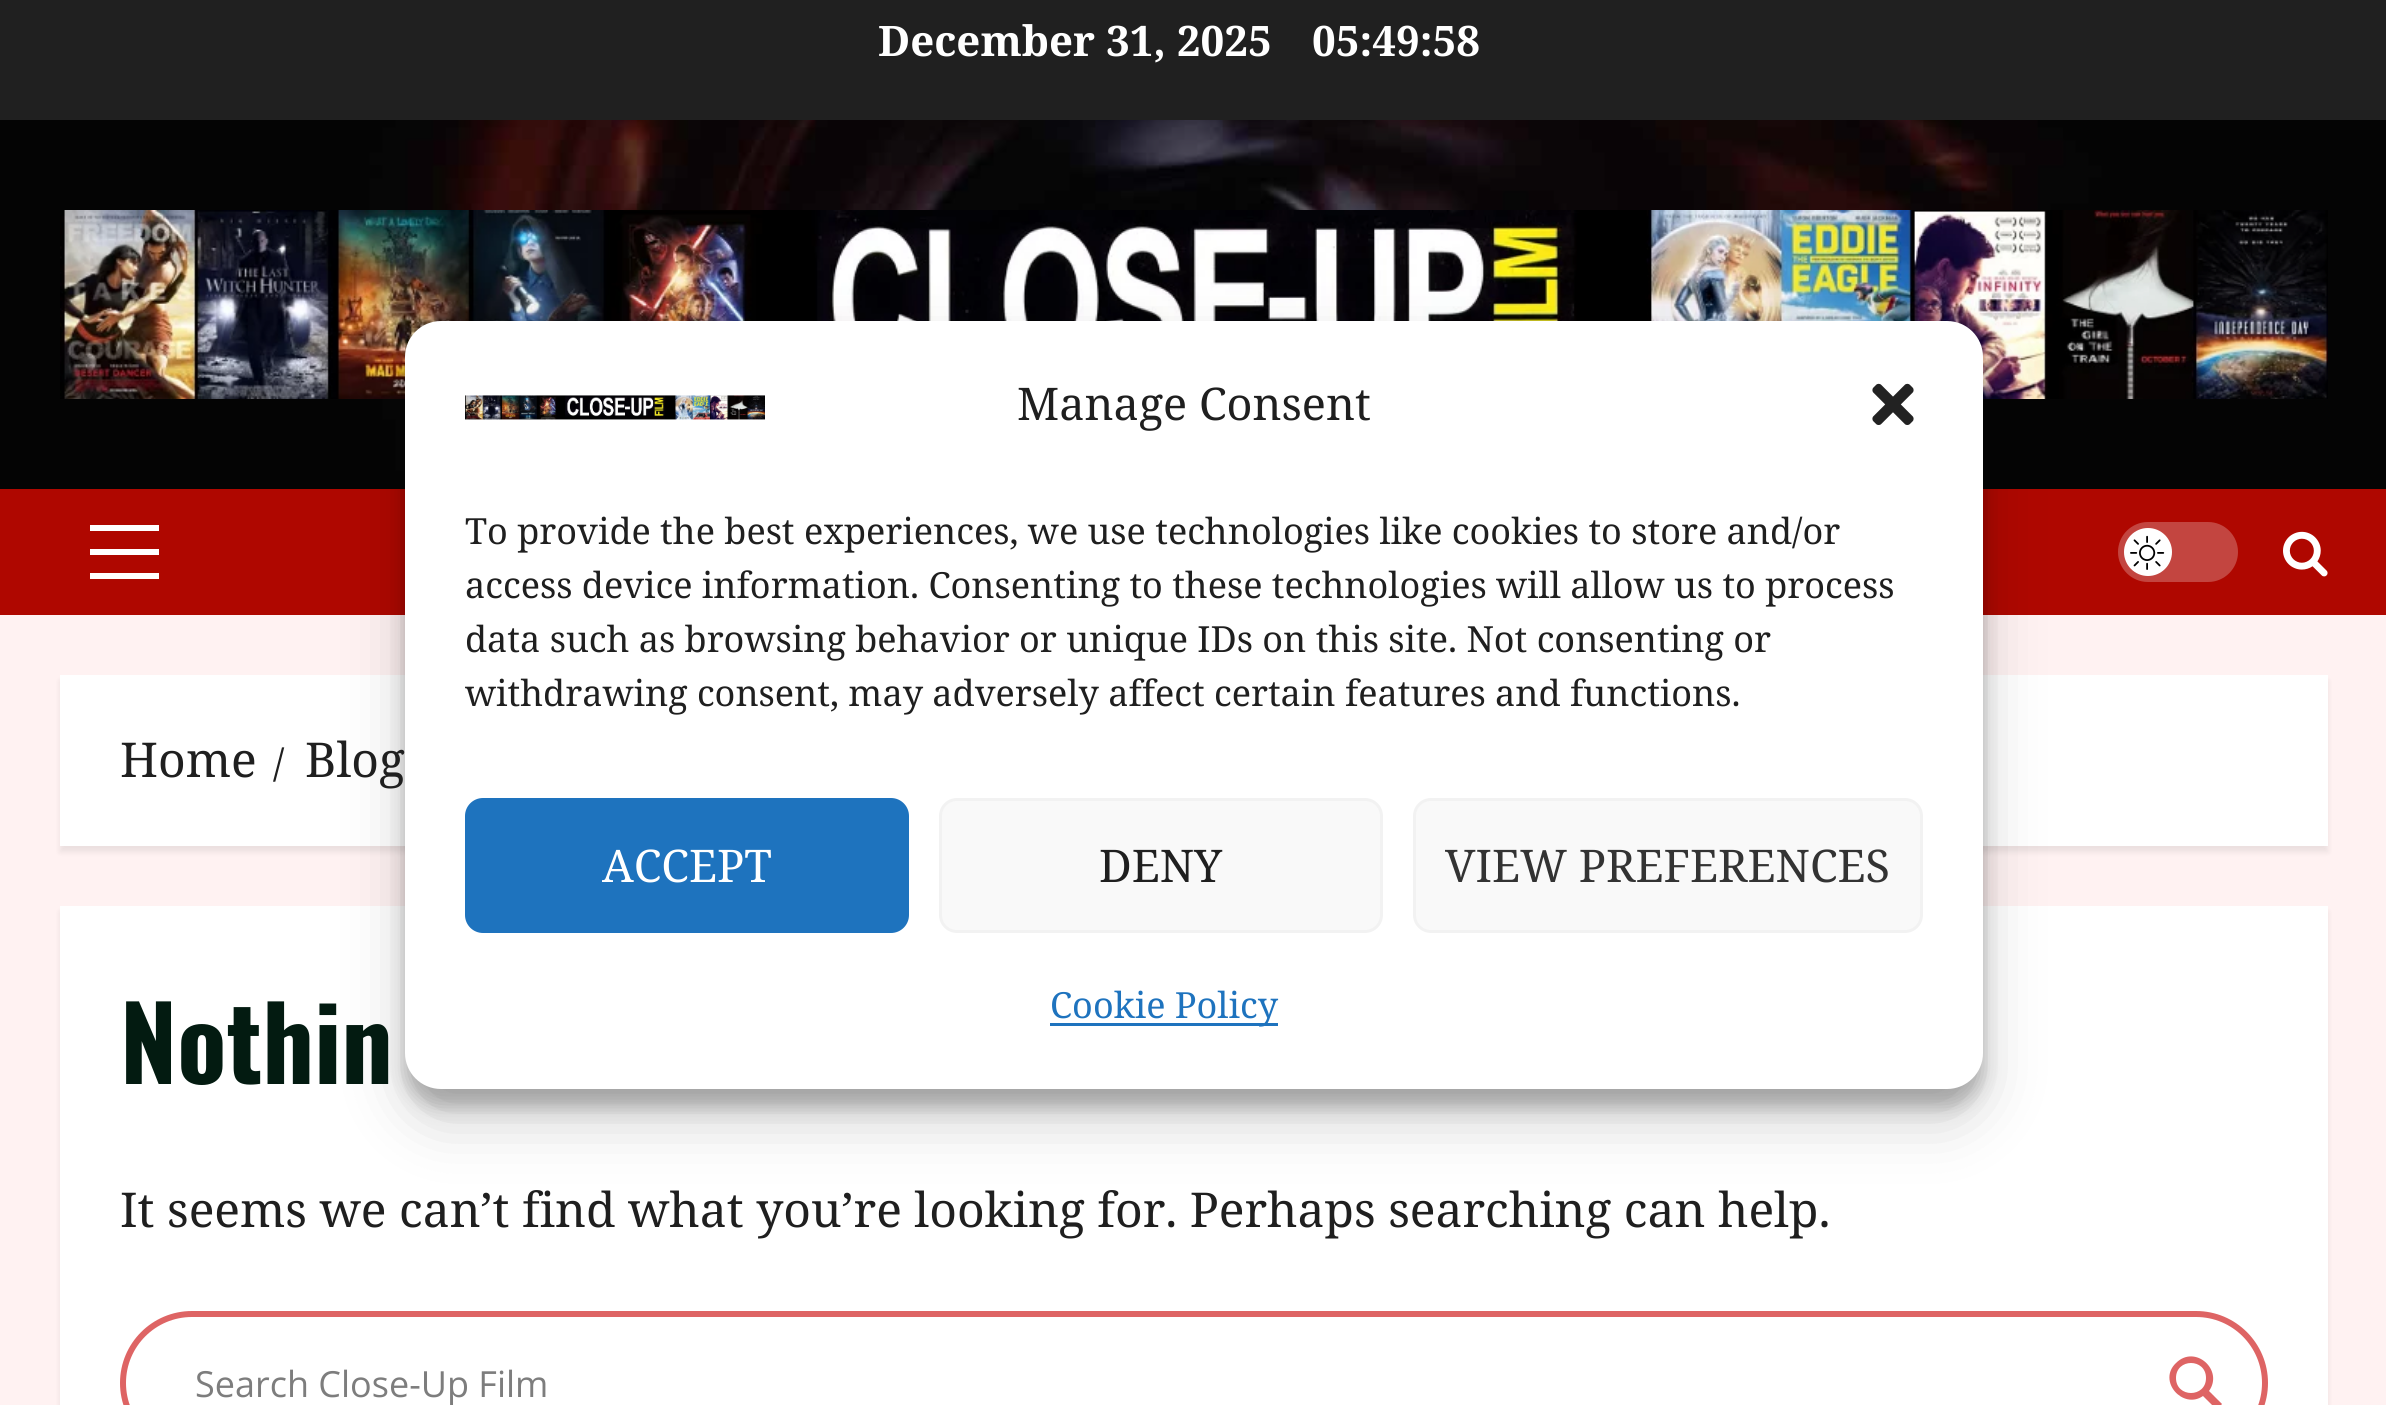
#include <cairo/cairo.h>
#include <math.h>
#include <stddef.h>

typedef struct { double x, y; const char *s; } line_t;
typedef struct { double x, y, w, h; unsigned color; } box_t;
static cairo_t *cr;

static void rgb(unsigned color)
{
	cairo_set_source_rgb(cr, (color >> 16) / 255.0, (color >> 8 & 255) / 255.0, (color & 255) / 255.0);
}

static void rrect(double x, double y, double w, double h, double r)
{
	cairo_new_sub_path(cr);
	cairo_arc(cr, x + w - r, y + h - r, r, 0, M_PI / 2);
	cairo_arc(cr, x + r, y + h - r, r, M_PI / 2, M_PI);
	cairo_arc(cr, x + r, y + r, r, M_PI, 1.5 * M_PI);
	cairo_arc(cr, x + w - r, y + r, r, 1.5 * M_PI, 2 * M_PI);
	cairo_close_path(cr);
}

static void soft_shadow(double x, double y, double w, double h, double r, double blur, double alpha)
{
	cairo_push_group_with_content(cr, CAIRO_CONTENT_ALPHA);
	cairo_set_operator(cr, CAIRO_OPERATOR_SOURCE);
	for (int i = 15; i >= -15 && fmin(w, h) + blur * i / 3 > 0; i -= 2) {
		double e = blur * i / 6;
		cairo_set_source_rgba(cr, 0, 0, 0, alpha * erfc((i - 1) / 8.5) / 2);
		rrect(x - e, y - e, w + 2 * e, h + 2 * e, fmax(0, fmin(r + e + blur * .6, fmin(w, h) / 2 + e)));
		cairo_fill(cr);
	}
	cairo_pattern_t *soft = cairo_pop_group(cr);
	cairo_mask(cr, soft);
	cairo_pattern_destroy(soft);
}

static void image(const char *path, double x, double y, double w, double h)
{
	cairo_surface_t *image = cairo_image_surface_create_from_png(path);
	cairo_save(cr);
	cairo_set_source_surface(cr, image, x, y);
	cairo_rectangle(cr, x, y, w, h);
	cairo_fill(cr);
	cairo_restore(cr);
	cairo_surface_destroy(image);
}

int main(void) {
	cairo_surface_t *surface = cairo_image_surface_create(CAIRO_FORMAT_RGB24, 2386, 1405);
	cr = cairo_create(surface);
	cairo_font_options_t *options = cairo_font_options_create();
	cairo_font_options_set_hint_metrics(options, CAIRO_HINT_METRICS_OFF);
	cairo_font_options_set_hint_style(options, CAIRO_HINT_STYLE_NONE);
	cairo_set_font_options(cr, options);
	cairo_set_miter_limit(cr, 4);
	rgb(0xfff2f2);
	cairo_paint(cr);
	rgb(0x202020);
	cairo_rectangle(cr, 0, 0, 2386, 120);
	cairo_fill(cr);
	image("img/1.png", 0, 120, 2386, 369);
	image("img/2.png", 60, 210, 2268, 189);
	{
		static const box_t items[] = {
			{0, 489, 2386, 126, 0xaf0700},
			{90, 549, 69, 6, 0xffffff},
			{90, 525, 69, 6, 0xffffff},
			{90, 573, 69, 6, 0xffffff},
		};
		for (size_t i = 0; i < sizeof items / sizeof *items; i++) {
			rgb(items[i].color);
			cairo_rectangle(cr, items[i].x, items[i].y, items[i].w, items[i].h);
			cairo_fill(cr);
		}
	}
	rgb(0xc34540);
	rrect(2118, 522, 120, 60, 30);
	cairo_fill(cr);
	rgb(0xffffff);
	cairo_arc(cr, 2148, 552, 24, 0, 2 * M_PI);
	cairo_fill(cr);
	image("img/3.png", 2130, 535, 35, 35);
	image("img/4.png", 2283, 531, 45, 46);
	rgb(0x000000);
	soft_shadow(60, 681, 2268, 171, 0, 3, 0.08);
	rgb(0xffffff);
	cairo_rectangle(cr, 60, 675, 2268, 171);
	cairo_fill(cr);
	rgb(0x000000);
	soft_shadow(60, 912, 2268, 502, 0, 3, 0.08);
	rgb(0xffffff);
	cairo_rectangle(cr, 60, 906, 2268, 499);
	cairo_fill(cr);
	rrect(123, 1314, 2142, 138, 69);
	rgb(0xde6464);
	cairo_set_line_width(cr, 6);
	cairo_stroke(cr);
	cairo_new_path(cr);
	cairo_move_to(cr, 2222, 1404);
	cairo_line_to(cr, 2209, 1391);
	cairo_curve_to(cr, 2224, 1370, 2195, 1344, 2176, 1363);
	cairo_curve_to(cr, 2157, 1381, 2183, 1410, 2203, 1396);
	cairo_line_to(cr, 2217, 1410);
	cairo_close_path(cr);
	cairo_move_to(cr, 2176, 1378);
	cairo_curve_to(cr, 2176, 1358, 2206, 1358, 2206, 1378);
	cairo_curve_to(cr, 2206, 1398, 2176, 1398, 2176, 1378);
	cairo_close_path(cr);
	cairo_fill(cr);
	rgb(0x000000);
	soft_shadow(405, 339, 1578, 768, 36, 9, 0.23);
	soft_shadow(405, 351, 1578, 768, 36, 30, 0.19);
	rgb(0xffffff);
	rrect(405, 321, 1578, 768, 36);
	cairo_fill(cr);
	image("img/5.png", 465, 395, 300, 25);
	image("img/6.png", 1872, 383, 42, 42);
	rgb(0x1e73be);
	rrect(466.5, 799.5, 441, 132, 16.5);
	cairo_fill_preserve(cr);
	cairo_set_line_width(cr, 3);
	cairo_stroke(cr);
	rgb(0xf9f9f9);
	rrect(940.5, 799.5, 441, 132, 16.5);
	cairo_fill_preserve(cr);
	rgb(0xf2f2f2);
	cairo_stroke(cr);
	rgb(0xf9f9f9);
	rrect(1414.5, 799.5, 507, 132, 16.5);
	cairo_fill_preserve(cr);
	rgb(0xf2f2f2);
	cairo_stroke(cr);
	rgb(0x1e73be);
	cairo_rectangle(cr, 1050, 1023, 228, 3);
	cairo_fill(cr);
	cairo_select_font_face(cr, "Noto Serif", CAIRO_FONT_SLANT_NORMAL, CAIRO_FONT_WEIGHT_BOLD);
	cairo_set_font_size(cr, 42);
	rgb(0xffffff);
	cairo_move_to(cr, 878, 56);
	cairo_show_text(cr, "December 31, 2025");
	cairo_move_to(cr, 1312, 56);
	cairo_show_text(cr, "05:49:58");
	cairo_select_font_face(cr, "Noto Serif", CAIRO_FONT_SLANT_NORMAL, CAIRO_FONT_WEIGHT_NORMAL);
	cairo_set_font_size(cr, 48);
	rgb(0x1f1f1f);
	cairo_move_to(cr, 120, 777);
	cairo_show_text(cr, "Home");
	cairo_set_font_size(cr, 39);
	cairo_move_to(cr, 273, 777);
	cairo_show_text(cr, "/");
	cairo_set_font_size(cr, 48);
	cairo_move_to(cr, 305, 777);
	cairo_show_text(cr, "Blog");
	cairo_select_font_face(cr, "Oswald", CAIRO_FONT_SLANT_NORMAL, CAIRO_FONT_WEIGHT_BOLD);
	cairo_set_font_size(cr, 102);
	rgb(0x031b11);
	cairo_move_to(cr, 120, 1084);
	cairo_show_text(cr, "Nothin");
	cairo_select_font_face(cr, "Noto Serif", CAIRO_FONT_SLANT_NORMAL, CAIRO_FONT_WEIGHT_NORMAL);
	cairo_set_font_size(cr, 48);
	rgb(0x1f1f1f);
	cairo_move_to(cr, 120, 1227);
	cairo_show_text(cr, "It seems we can’t find what you’re looking for. Perhaps searching can help.");
	cairo_select_font_face(cr, "Open Sans", CAIRO_FONT_SLANT_NORMAL, CAIRO_FONT_WEIGHT_NORMAL);
	cairo_set_font_size(cr, 36);
	rgb(0x7d7d7d);
	cairo_move_to(cr, 195, 1397);
	cairo_show_text(cr, "Search Close-Up Film");
	cairo_select_font_face(cr, "Noto Serif", CAIRO_FONT_SLANT_NORMAL, CAIRO_FONT_WEIGHT_NORMAL);
	cairo_set_font_size(cr, 45);
	rgb(0x1f1f1f);
	cairo_move_to(cr, 1017, 420);
	cairo_show_text(cr, "Manage Consent");
	cairo_set_font_size(cr, 36);
	{
		static const line_t items[] = {
			{465, 544, "To provide the best experiences, we use technologies like cookies to store and/or"},
			{465, 598, "access device information. Consenting to these technologies will allow us to process"},
			{465, 652, "data such as browsing behavior or unique IDs on this site. Not consenting or"},
			{465, 706, "withdrawing consent, may adversely affect certain features and functions."},
		};
		for (size_t i = 0; i < sizeof items / sizeof *items; i++) {
			cairo_move_to(cr, items[i].x, items[i].y);
			cairo_show_text(cr, items[i].s);
		}
	}
	cairo_set_font_size(cr, 45);
	rgb(0xffffff);
	cairo_move_to(cr, 602, 882);
	cairo_show_text(cr, "ACCEPT");
	rgb(0x1f1f1f);
	cairo_move_to(cr, 1099, 882);
	cairo_show_text(cr, "DENY");
	rgb(0x333333);
	cairo_move_to(cr, 1445, 882);
	cairo_show_text(cr, "VIEW PREFERENCES");
	cairo_set_font_size(cr, 36);
	rgb(0x1e73be);
	cairo_move_to(cr, 1050, 1018);
	cairo_show_text(cr, "Cookie Policy");
	cairo_surface_write_to_png(surface, "page.png");
	cairo_font_options_destroy(options);
	cairo_destroy(cr);
	cairo_surface_destroy(surface);
	return 0;
}
